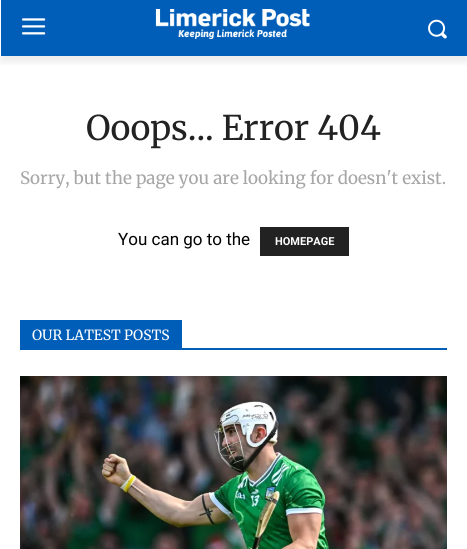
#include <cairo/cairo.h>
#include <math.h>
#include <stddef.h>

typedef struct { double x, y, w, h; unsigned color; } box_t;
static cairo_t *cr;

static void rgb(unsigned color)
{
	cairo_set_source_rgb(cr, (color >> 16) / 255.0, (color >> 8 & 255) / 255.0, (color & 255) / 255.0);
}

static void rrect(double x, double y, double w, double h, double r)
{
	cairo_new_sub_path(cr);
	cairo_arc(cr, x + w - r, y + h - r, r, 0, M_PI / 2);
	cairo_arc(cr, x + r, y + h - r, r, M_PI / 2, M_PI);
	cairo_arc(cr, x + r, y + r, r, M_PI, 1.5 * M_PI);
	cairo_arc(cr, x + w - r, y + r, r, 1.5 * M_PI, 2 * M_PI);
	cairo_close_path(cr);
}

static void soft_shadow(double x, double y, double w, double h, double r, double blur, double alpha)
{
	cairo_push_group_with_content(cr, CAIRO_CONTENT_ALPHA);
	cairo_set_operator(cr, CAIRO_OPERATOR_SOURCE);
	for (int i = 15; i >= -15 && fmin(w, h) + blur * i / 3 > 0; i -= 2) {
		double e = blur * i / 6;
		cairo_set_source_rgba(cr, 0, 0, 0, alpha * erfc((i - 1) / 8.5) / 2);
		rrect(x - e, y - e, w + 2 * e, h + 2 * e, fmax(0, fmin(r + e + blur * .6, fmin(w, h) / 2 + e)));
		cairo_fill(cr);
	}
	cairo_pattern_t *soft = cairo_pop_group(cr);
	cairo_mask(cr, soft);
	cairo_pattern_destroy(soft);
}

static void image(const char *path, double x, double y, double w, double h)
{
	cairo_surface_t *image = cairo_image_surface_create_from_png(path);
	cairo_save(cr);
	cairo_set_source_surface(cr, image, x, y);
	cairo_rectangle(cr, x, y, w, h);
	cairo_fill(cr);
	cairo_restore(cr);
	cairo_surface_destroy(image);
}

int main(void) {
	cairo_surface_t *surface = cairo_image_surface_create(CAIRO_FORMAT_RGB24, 467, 549);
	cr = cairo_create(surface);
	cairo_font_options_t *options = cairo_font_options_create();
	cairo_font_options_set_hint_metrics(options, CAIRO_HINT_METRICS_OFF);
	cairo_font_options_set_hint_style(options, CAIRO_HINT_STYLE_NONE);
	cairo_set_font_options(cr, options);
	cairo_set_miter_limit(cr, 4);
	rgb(0xffffff);
	cairo_paint(cr);
	rgb(0x005eb8);
	cairo_rectangle(cr, 1, 0, 466, 56);
	cairo_fill(cr);
	image("img/1.png", 22, 18, 24, 17);
	image("img/2.png", 155, 9, 155, 30);
	image("img/3.png", 428, 19, 19, 20);
	cairo_save(cr);
	cairo_rectangle(cr, 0, 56, 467, 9);
	cairo_clip(cr);
	rgb(0x000000);
	soft_shadow(1, 6, 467, 56, 0, 4, 0.08);
	cairo_restore(cr);
	{
		static const box_t items[] = {
			{260, 227, 89, 29, 0x222222},
			{20, 348, 427, 2, 0x005eb8},
			{20, 320, 162, 28, 0x005eb8},
		};
		for (size_t i = 0; i < sizeof items / sizeof *items; i++) {
			rgb(items[i].color);
			cairo_rectangle(cr, items[i].x, items[i].y, items[i].w, items[i].h);
			cairo_fill(cr);
		}
	}
	image("img/4.png", 20, 376, 427, 173);
	cairo_select_font_face(cr, "Merriweather", CAIRO_FONT_SLANT_NORMAL, CAIRO_FONT_WEIGHT_NORMAL);
	cairo_set_font_size(cr, 34);
	rgb(0x222222);
	cairo_move_to(cr, 86, 140);
	cairo_show_text(cr, "Ooops... Error 404");
	cairo_set_font_size(cr, 17);
	rgb(0xa6a6a6);
	cairo_move_to(cr, 20, 184);
	cairo_show_text(cr, "Sorry, but the page you are looking for doesn't exist.");
	cairo_select_font_face(cr, "Roboto", CAIRO_FONT_SLANT_NORMAL, CAIRO_FONT_WEIGHT_NORMAL);
	rgb(0x000000);
	cairo_move_to(cr, 118, 245);
	cairo_show_text(cr, "You can go to the");
	cairo_select_font_face(cr, "Roboto", CAIRO_FONT_SLANT_NORMAL, CAIRO_FONT_WEIGHT_BOLD);
	cairo_set_font_size(cr, 11);
	rgb(0xffffff);
	cairo_move_to(cr, 275, 245);
	cairo_show_text(cr, "HOMEPAGE");
	cairo_select_font_face(cr, "Merriweather", CAIRO_FONT_SLANT_NORMAL, CAIRO_FONT_WEIGHT_NORMAL);
	cairo_set_font_size(cr, 14);
	cairo_move_to(cr, 32, 340);
	cairo_show_text(cr, "OUR LATEST POSTS");
	cairo_surface_write_to_png(surface, "page.png");
	cairo_font_options_destroy(options);
	cairo_destroy(cr);
	cairo_surface_destroy(surface);
	return 0;
}
